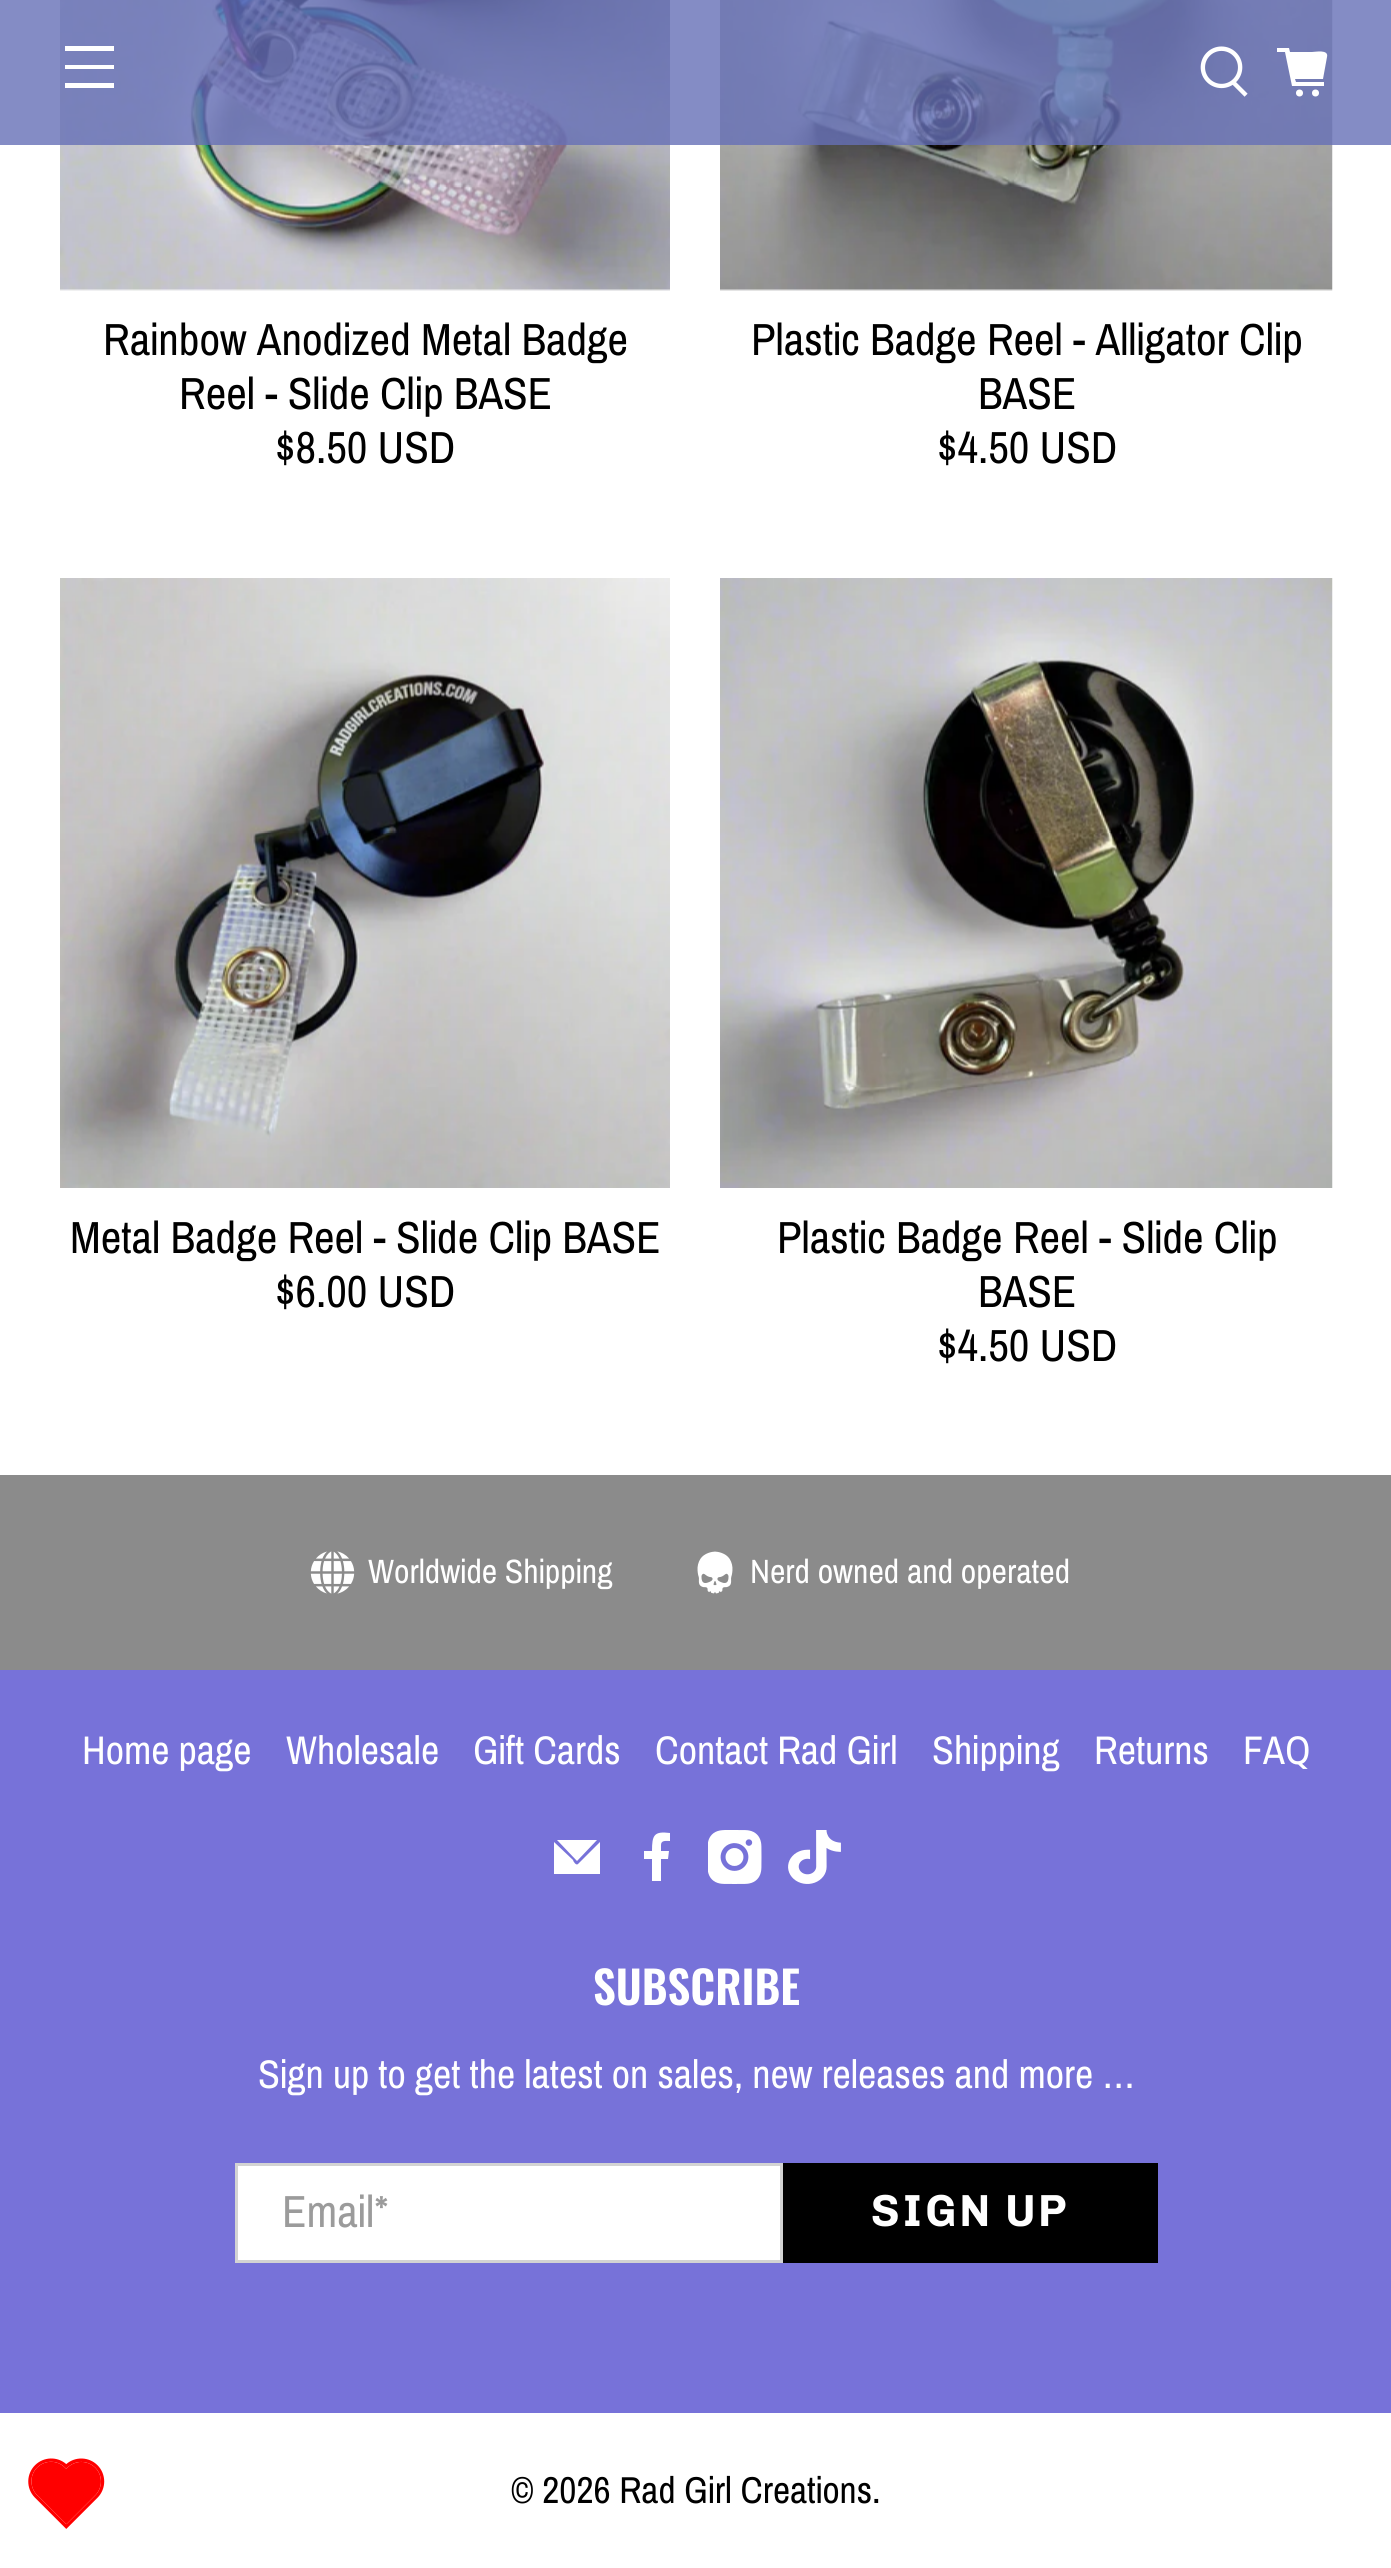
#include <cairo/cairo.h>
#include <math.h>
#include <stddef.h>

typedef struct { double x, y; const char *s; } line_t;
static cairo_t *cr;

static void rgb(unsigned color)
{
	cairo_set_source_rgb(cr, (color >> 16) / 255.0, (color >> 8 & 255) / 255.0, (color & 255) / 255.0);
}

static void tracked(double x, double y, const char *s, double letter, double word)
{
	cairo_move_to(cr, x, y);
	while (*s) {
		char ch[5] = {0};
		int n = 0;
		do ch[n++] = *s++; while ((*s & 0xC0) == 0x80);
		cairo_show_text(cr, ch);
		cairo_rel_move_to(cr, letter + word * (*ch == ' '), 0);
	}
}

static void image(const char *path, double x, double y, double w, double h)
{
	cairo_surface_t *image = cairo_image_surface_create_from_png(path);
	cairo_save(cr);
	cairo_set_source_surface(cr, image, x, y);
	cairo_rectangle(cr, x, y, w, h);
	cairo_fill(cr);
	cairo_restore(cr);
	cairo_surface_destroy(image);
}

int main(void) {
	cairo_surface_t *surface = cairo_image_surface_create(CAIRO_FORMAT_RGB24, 1391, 2568);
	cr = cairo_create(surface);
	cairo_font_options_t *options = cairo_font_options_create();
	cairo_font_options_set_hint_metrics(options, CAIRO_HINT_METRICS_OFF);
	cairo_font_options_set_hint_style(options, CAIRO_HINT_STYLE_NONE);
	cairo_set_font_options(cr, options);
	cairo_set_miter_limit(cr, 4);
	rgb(0xffffff);
	cairo_paint(cr);
	image("img/2.png", 60, 0, 610, 291);
	image("img/3.png", 720, 0, 613, 291);
	cairo_set_source_rgba(cr, 0.4, 0.435, 0.714, 0.8);
	cairo_rectangle(cr, 0, 0, 1391, 145);
	cairo_fill(cr);
	rgb(0xffffff);
	cairo_rectangle(cr, 65, 46, 49, 5);
	cairo_fill(cr);
	cairo_rectangle(cr, 65, 65, 49, 4);
	cairo_fill(cr);
	cairo_rectangle(cr, 65, 83, 49, 5);
	cairo_fill(cr);
	image("img/1.png", 1200, 46, 48, 51);
	cairo_arc(cr, 1299.5, 93, 3.5, 0, 2 * M_PI);
	cairo_fill(cr);
	cairo_arc(cr, 1315.5, 93, 3.5, 0, 2 * M_PI);
	cairo_fill(cr);
	cairo_new_path(cr);
	cairo_move_to(cr, 1327, 57);
	cairo_curve_to(cr, 1329, 49, 1315, 52, 1312, 52);
	cairo_line_to(cr, 1290, 52);
	cairo_line_to(cr, 1289, 48);
	cairo_line_to(cr, 1277, 48);
	cairo_line_to(cr, 1277, 52);
	cairo_line_to(cr, 1285, 52);
	cairo_line_to(cr, 1292, 86);
	cairo_line_to(cr, 1324, 86);
	cairo_line_to(cr, 1324, 82);
	cairo_line_to(cr, 1296, 82);
	cairo_line_to(cr, 1295, 79);
	cairo_line_to(cr, 1323, 79);
	cairo_close_path(cr);
	cairo_fill(cr);
	image("img/4.png", 60, 578, 610, 610);
	image("img/5.png", 720, 578, 613, 610);
	rgb(0x8b8b8b);
	cairo_rectangle(cr, 0, 1475, 1391, 195);
	cairo_fill(cr);
	image("img/6.png", 310, 1551, 45, 43);
	image("img/7.png", 697, 1551, 36, 43);
	image("img/8.png", 28, 2458, 77, 71);
	rgb(0x7772d9);
	cairo_rectangle(cr, 0, 1670, 1391, 743);
	cairo_fill(cr);
	rgb(0xffffff);
	cairo_new_path(cr);
	cairo_move_to(cr, 578, 1864);
	cairo_curve_to(cr, 576, 1866, 573, 1861, 573, 1860);
	cairo_line_to(cr, 554, 1842);
	cairo_line_to(cr, 554, 1874);
	cairo_line_to(cr, 600, 1874);
	cairo_line_to(cr, 600, 1842);
	cairo_close_path(cr);
	cairo_fill(cr);
	cairo_new_path(cr);
	cairo_move_to(cr, 597, 1840);
	cairo_line_to(cr, 557, 1840);
	cairo_line_to(cr, 577, 1861);
	cairo_close_path(cr);
	cairo_fill(cr);
	cairo_new_path(cr);
	cairo_move_to(cr, 661, 1845);
	cairo_line_to(cr, 661, 1851);
	cairo_line_to(cr, 669, 1851);
	cairo_line_to(cr, 668, 1859);
	cairo_line_to(cr, 661, 1859);
	cairo_line_to(cr, 661, 1881);
	cairo_line_to(cr, 652, 1881);
	cairo_line_to(cr, 652, 1859);
	cairo_line_to(cr, 644, 1859);
	cairo_line_to(cr, 644, 1851);
	cairo_line_to(cr, 652, 1851);
	cairo_curve_to(cr, 652, 1835, 654, 1831, 670, 1833);
	cairo_line_to(cr, 670, 1841);
	cairo_curve_to(cr, 666, 1841, 661, 1840, 661, 1845);
	cairo_close_path(cr);
	cairo_fill(cr);
	image("img/9.png", 708, 1830, 54, 54);
	image("img/10.png", 788, 1830, 53, 54);
	cairo_rectangle(cr, 236.5, 2164.5, 545, 97);
	cairo_fill_preserve(cr);
	rgb(0xd3d3d3);
	cairo_set_line_width(cr, 3);
	cairo_stroke(cr);
	rgb(0x000000);
	cairo_rectangle(cr, 783, 2163, 375, 100);
	cairo_fill(cr);
	cairo_select_font_face(cr, "Archivo Narrow", CAIRO_FONT_SLANT_NORMAL, CAIRO_FONT_WEIGHT_NORMAL);
	cairo_set_font_size(cr, 45);
	{
		static const line_t items[] = {
			{103, 355, "Rainbow Anodized Metal Badge"},
			{179, 409, "Reel - Slide Clip BASE"},
			{275, 463, "$8.50 USD"},
			{751, 355, "Plastic Badge Reel - Alligator Clip"},
			{978, 409, "BASE"},
			{937, 463, "$4.50 USD"},
			{70, 1253, "Metal Badge Reel - Slide Clip BASE"},
			{275, 1307, "$6.00 USD"},
			{777, 1253, "Plastic Badge Reel - Slide Clip"},
			{978, 1307, "BASE"},
			{937, 1361, "$4.50 USD"},
		};
		for (size_t i = 0; i < sizeof items / sizeof *items; i++) {
			cairo_move_to(cr, items[i].x, items[i].y);
			cairo_show_text(cr, items[i].s);
		}
	}
	cairo_set_font_size(cr, 33.75);
	rgb(0xffffff);
	cairo_move_to(cr, 368, 1583);
	cairo_show_text(cr, "Worldwide Shipping");
	cairo_move_to(cr, 750, 1583);
	cairo_show_text(cr, "Nerd owned and operated");
	cairo_set_font_size(cr, 40);
	{
		static const line_t items[] = {
			{82, 1764, "Home page"},
			{286, 1764, "Wholesale"},
			{473, 1764, "Gift Cards"},
			{655, 1764, "Contact Rad Girl"},
			{932, 1764, "Shipping"},
			{1094, 1764, "Returns"},
			{1243, 1764, "FAQ"},
		};
		for (size_t i = 0; i < sizeof items / sizeof *items; i++) {
			cairo_move_to(cr, items[i].x, items[i].y);
			cairo_show_text(cr, items[i].s);
		}
	}
	cairo_select_font_face(cr, "Oswald SemiBold", CAIRO_FONT_SLANT_NORMAL, CAIRO_FONT_WEIGHT_NORMAL);
	cairo_set_font_size(cr, 45);
	cairo_move_to(cr, 593, 2005);
	cairo_show_text(cr, "SUBSCRIBE");
	cairo_select_font_face(cr, "Archivo Narrow", CAIRO_FONT_SLANT_NORMAL, CAIRO_FONT_WEIGHT_NORMAL);
	cairo_set_font_size(cr, 40);
	cairo_move_to(cr, 258, 2088);
	cairo_show_text(cr, "Sign up to get the latest on sales, new releases and more …");
	cairo_set_font_size(cr, 45);
	rgb(0x9b9b9b);
	cairo_move_to(cr, 282, 2227);
	cairo_show_text(cr, "Email*");
	cairo_select_font_face(cr, "Chivo", CAIRO_FONT_SLANT_NORMAL, CAIRO_FONT_WEIGHT_NORMAL);
	rgb(0xffffff);
	tracked(871, 2226, "SIGN UP", 2.5, 0);
	cairo_select_font_face(cr, "Archivo Narrow", CAIRO_FONT_SLANT_NORMAL, CAIRO_FONT_WEIGHT_NORMAL);
	cairo_set_font_size(cr, 37.5);
	rgb(0x000000);
	cairo_move_to(cr, 511, 2503);
	cairo_show_text(cr, "© 2026 Rad Girl Creations.");
	cairo_surface_write_to_png(surface, "page.png");
	cairo_font_options_destroy(options);
	cairo_destroy(cr);
	cairo_surface_destroy(surface);
	return 0;
}
